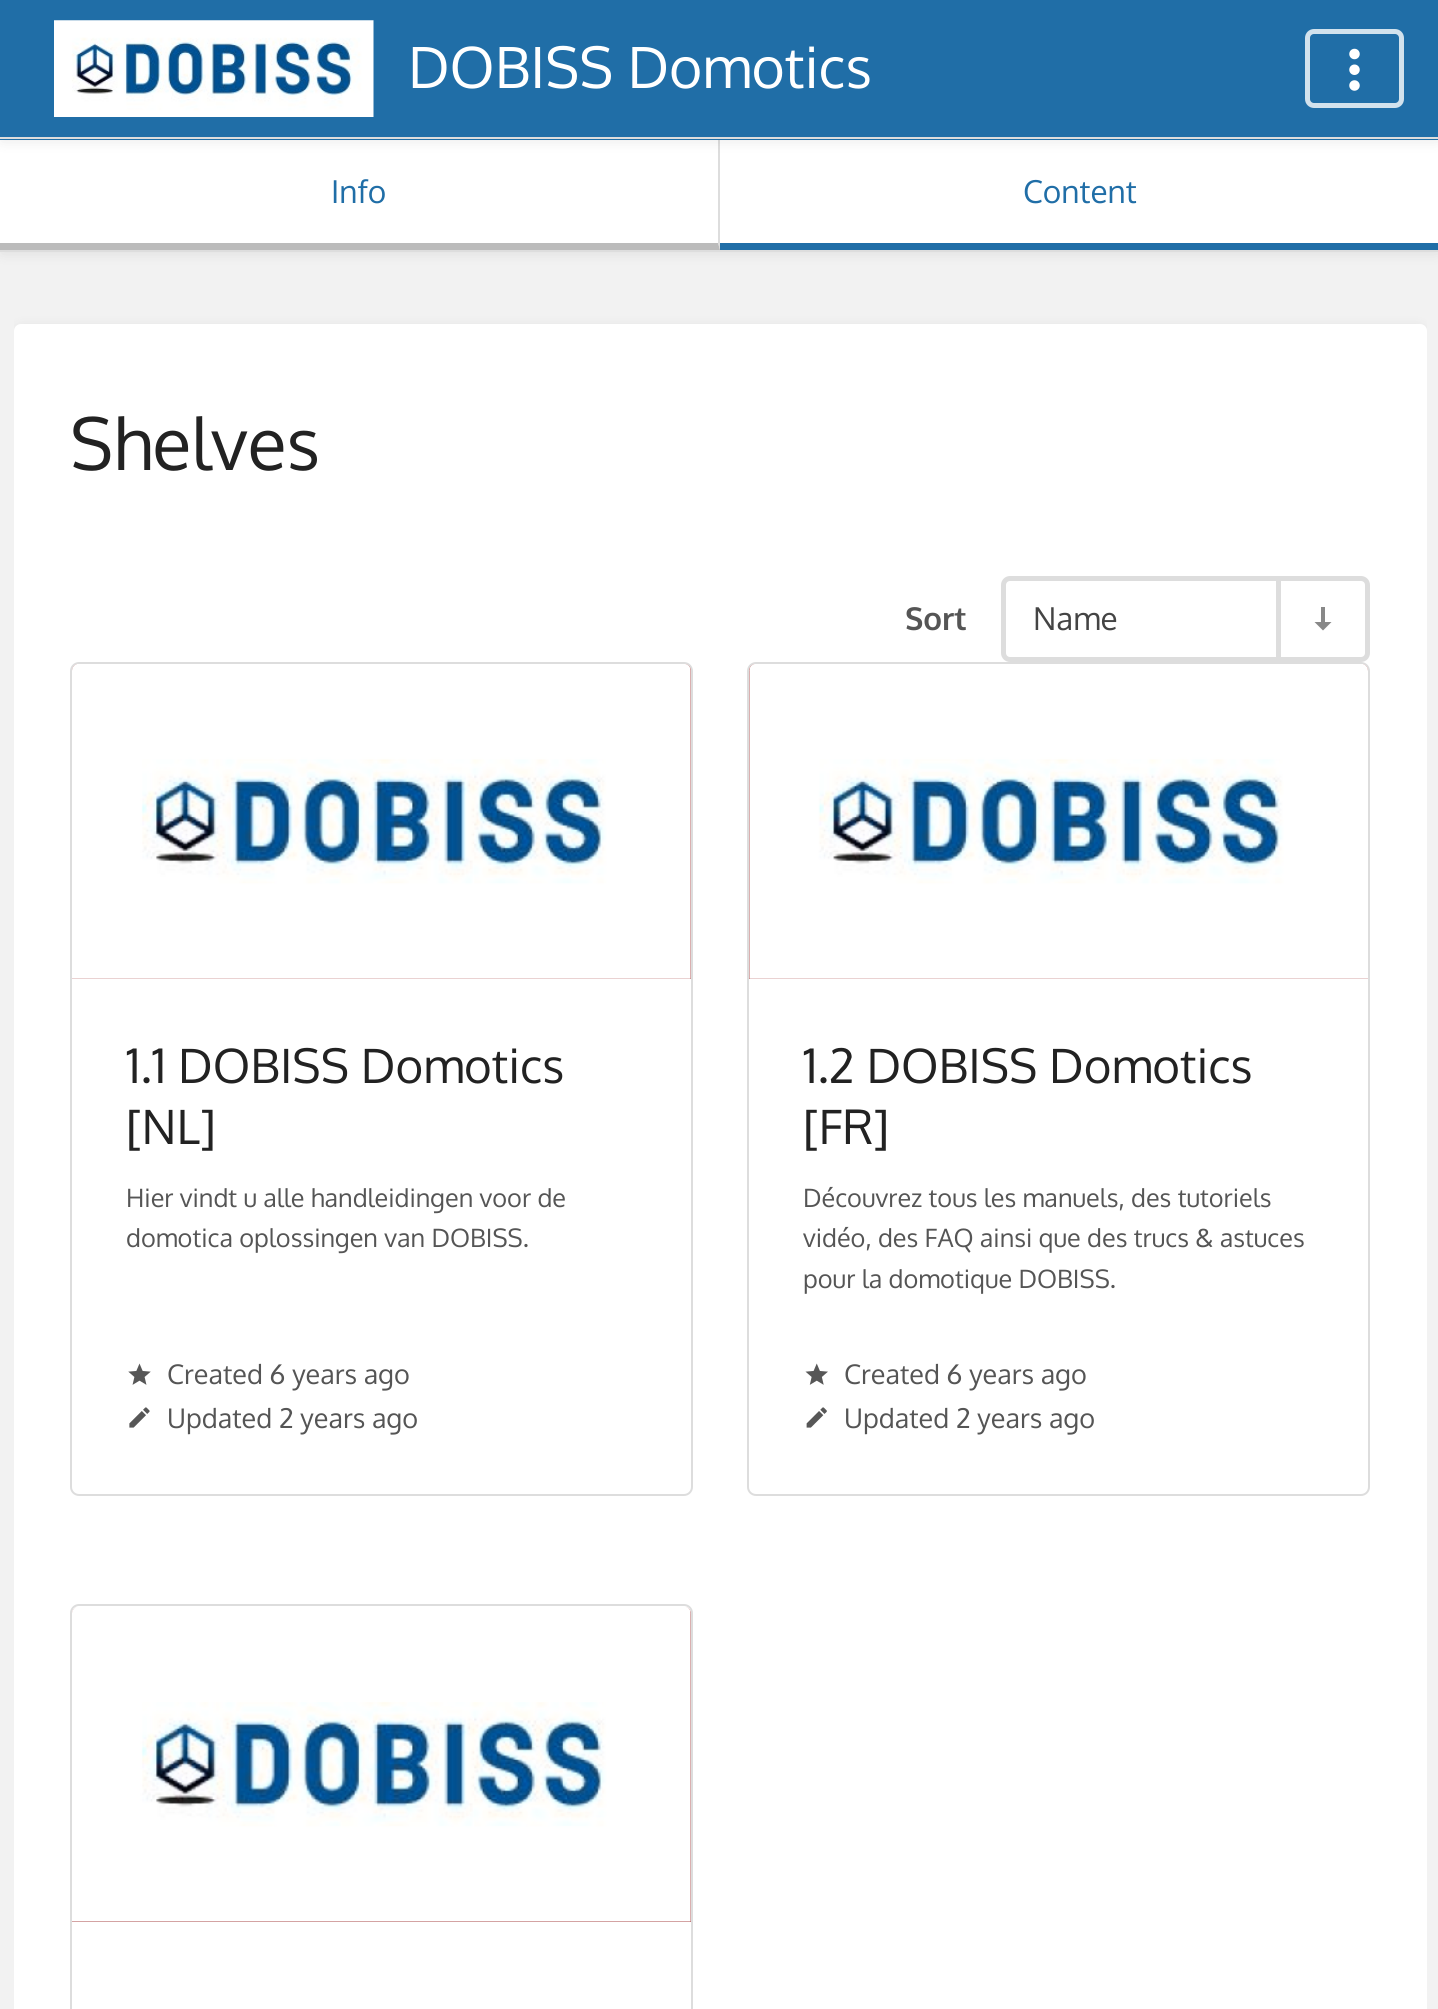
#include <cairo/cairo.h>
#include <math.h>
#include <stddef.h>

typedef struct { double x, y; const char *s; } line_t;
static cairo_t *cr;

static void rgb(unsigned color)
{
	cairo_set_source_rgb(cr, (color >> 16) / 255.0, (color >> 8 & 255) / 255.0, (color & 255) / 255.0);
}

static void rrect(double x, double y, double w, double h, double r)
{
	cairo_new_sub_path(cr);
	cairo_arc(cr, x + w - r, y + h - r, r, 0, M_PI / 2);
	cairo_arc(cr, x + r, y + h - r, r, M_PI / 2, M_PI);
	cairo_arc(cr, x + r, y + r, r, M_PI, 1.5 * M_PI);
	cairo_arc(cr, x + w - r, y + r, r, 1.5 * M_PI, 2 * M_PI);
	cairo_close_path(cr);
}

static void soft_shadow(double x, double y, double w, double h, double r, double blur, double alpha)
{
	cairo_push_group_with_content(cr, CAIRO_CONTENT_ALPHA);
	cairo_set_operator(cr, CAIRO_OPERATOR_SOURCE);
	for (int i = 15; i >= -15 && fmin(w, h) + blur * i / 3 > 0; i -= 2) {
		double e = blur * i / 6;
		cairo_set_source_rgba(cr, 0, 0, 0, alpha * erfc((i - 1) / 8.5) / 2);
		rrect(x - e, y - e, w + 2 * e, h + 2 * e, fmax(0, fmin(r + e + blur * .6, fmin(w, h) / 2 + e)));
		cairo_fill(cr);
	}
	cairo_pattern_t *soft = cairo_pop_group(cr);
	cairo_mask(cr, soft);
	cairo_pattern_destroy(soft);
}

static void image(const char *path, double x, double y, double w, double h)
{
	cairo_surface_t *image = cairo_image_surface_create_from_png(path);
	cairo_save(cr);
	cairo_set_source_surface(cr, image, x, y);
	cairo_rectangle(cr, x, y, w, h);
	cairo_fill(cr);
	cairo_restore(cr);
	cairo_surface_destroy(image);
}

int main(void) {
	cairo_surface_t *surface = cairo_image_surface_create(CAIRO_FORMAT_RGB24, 1438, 2009);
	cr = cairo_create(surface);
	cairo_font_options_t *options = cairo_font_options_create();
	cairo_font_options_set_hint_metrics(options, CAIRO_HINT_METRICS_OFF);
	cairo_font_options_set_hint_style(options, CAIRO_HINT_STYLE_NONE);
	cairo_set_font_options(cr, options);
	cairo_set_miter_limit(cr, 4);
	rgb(0xf2f2f2);
	cairo_paint(cr);
	rgb(0x000000);
	soft_shadow(2, 144, 1436, 108, 0, 7, 0.1);
	rgb(0xffffff);
	cairo_rectangle(cr, 0, 140, 1438, 110);
	cairo_fill(cr);
	rgb(0xdddddd);
	cairo_new_path(cr);
	cairo_move_to(cr, 720, 140);
	cairo_line_to(cr, 720, 250);
	cairo_line_to(cr, 718, 243);
	cairo_line_to(cr, 718, 140);
	cairo_close_path(cr);
	cairo_fill(cr);
	rgb(0x000000);
	soft_shadow(2, 5, 1436, 135, 0, 7, 0.1);
	rgb(0x206ea7);
	cairo_rectangle(cr, 0, 0, 1438, 140);
	cairo_fill(cr);
	rgb(0xdddddd);
	cairo_rectangle(cr, 0, 137, 1438, 2);
	cairo_fill(cr);
	image("img/1.png", 54, 20, 320, 97);
	rrect(1307.5, 31.5, 94, 74, 6.5);
	rgb(0xd2e2ed);
	cairo_set_line_width(cr, 5);
	cairo_stroke(cr);
	image("img/2.png", 1349, 48, 11, 43);
	rgb(0xdddddd);
	cairo_rectangle(cr, 0, 250, 1438, 2);
	cairo_fill(cr);
	rgb(0xbbbbbb);
	cairo_new_path(cr);
	cairo_move_to(cr, 720, 250);
	cairo_line_to(cr, 0, 250);
	cairo_line_to(cr, 0, 243);
	cairo_line_to(cr, 718, 243);
	cairo_close_path(cr);
	cairo_fill(cr);
	rgb(0x206ea7);
	cairo_rectangle(cr, 720, 243, 718, 7);
	cairo_fill(cr);
	cairo_save(cr);
	cairo_rectangle(cr, 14, 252, 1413, 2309);
	cairo_clip(cr);
	rgb(0x000000);
	soft_shadow(16, 329, 1408, 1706, 5, 7, 0.1);
	cairo_restore(cr);
	rgb(0xffffff);
	rrect(14, 324, 1413, 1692, 7);
	cairo_fill(cr);
	rrect(1003.5, 578.5, 364, 81, 6.5);
	rgb(0xdddddd);
	cairo_stroke(cr);
	cairo_rectangle(cr, 1276, 581, 5, 76);
	cairo_fill(cr);
	rgb(0x888888);
	cairo_new_path(cr);
	cairo_move_to(cr, 1323, 630.5);
	cairo_line_to(cr, 1331.5, 622);
	cairo_line_to(cr, 1325, 622);
	cairo_line_to(cr, 1325, 607);
	cairo_line_to(cr, 1321, 607);
	cairo_line_to(cr, 1321, 622);
	cairo_line_to(cr, 1314.5, 622);
	cairo_close_path(cr);
	cairo_fill(cr);
	rrect(71, 663, 621, 832, 8);
	rgb(0xdddddd);
	cairo_set_line_width(cr, 2);
	cairo_stroke(cr);
	rgb(0xa94747);
	cairo_new_path(cr);
	cairo_move_to(cr, 79, 664);
	cairo_line_to(cr, 684, 664);
	cairo_curve_to(cr, 688, 664, 691, 667, 691, 671);
	cairo_line_to(cr, 691, 979);
	cairo_line_to(cr, 72, 979);
	cairo_line_to(cr, 72, 671);
	cairo_curve_to(cr, 72, 667, 75, 664, 79, 664);
	cairo_close_path(cr);
	cairo_fill(cr);
	image("img/3.png", 72, 664, 619, 315);
	image("img/4.png", 128, 1363, 23, 22);
	image("img/5.png", 129, 1407, 21, 21);
	rrect(748, 663, 621, 832, 8);
	rgb(0xdddddd);
	cairo_stroke(cr);
	rgb(0xa94747);
	cairo_new_path(cr);
	cairo_move_to(cr, 756, 664);
	cairo_line_to(cr, 1361, 664);
	cairo_curve_to(cr, 1365, 664, 1368, 667, 1368, 671);
	cairo_line_to(cr, 1368, 979);
	cairo_line_to(cr, 749, 979);
	cairo_line_to(cr, 749, 671);
	cairo_curve_to(cr, 749, 667, 752, 664, 756, 664);
	cairo_close_path(cr);
	cairo_fill(cr);
	image("img/6.png", 749, 664, 619, 315);
	image("img/7.png", 805, 1363, 23, 22);
	image("img/8.png", 806, 1407, 21, 21);
	rrect(71, 1605, 621, 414, 8);
	rgb(0xdddddd);
	cairo_stroke(cr);
	rgb(0xa94747);
	cairo_new_path(cr);
	cairo_move_to(cr, 79, 1607);
	cairo_line_to(cr, 684, 1607);
	cairo_curve_to(cr, 688, 1607, 691, 1610, 691, 1614);
	cairo_line_to(cr, 691, 1922);
	cairo_line_to(cr, 72, 1922);
	cairo_line_to(cr, 72, 1614);
	cairo_curve_to(cr, 72, 1610, 75, 1607, 79, 1607);
	cairo_close_path(cr);
	cairo_fill(cr);
	image("img/9.png", 72, 1607, 619, 315);
	cairo_select_font_face(cr, "Oxygen", CAIRO_FONT_SLANT_NORMAL, CAIRO_FONT_WEIGHT_NORMAL);
	cairo_set_font_size(cr, 56.75);
	rgb(0xffffff);
	cairo_move_to(cr, 408, 88);
	cairo_show_text(cr, "DOBISS Domotics");
	cairo_set_font_size(cr, 31.5);
	rgb(0x206ea7);
	cairo_move_to(cr, 331, 203);
	cairo_show_text(cr, "Info");
	cairo_move_to(cr, 1023, 203);
	cairo_show_text(cr, "Content");
	cairo_set_font_size(cr, 72);
	rgb(0x222222);
	cairo_move_to(cr, 70, 470);
	cairo_show_text(cr, "Shelves");
	cairo_select_font_face(cr, "Oxygen", CAIRO_FONT_SLANT_NORMAL, CAIRO_FONT_WEIGHT_BOLD);
	cairo_set_font_size(cr, 31.5);
	rgb(0x555555);
	cairo_move_to(cr, 905, 630);
	cairo_show_text(cr, "Sort");
	cairo_select_font_face(cr, "Oxygen", CAIRO_FONT_SLANT_NORMAL, CAIRO_FONT_WEIGHT_NORMAL);
	rgb(0x444444);
	cairo_move_to(cr, 1033, 630);
	cairo_show_text(cr, "Name");
	cairo_set_font_size(cr, 47.25);
	rgb(0x222222);
	cairo_move_to(cr, 126, 1083);
	cairo_show_text(cr, "1.1 DOBISS Domotics");
	cairo_move_to(cr, 126, 1144);
	cairo_show_text(cr, "[NL]");
	cairo_set_font_size(cr, 25.25);
	rgb(0x555555);
	cairo_move_to(cr, 126, 1207);
	cairo_show_text(cr, "Hier vindt u alle handleidingen voor de");
	cairo_move_to(cr, 126, 1247);
	cairo_show_text(cr, "domotica oplossingen van DOBISS.");
	cairo_set_font_size(cr, 27);
	cairo_move_to(cr, 167, 1384);
	cairo_show_text(cr, "Created 6 years ago");
	cairo_move_to(cr, 167, 1428);
	cairo_show_text(cr, "Updated 2 years ago");
	cairo_set_font_size(cr, 47.25);
	rgb(0x222222);
	cairo_move_to(cr, 803, 1083);
	cairo_show_text(cr, "1.2 DOBISS Domotics");
	cairo_move_to(cr, 803, 1144);
	cairo_show_text(cr, "[FR]");
	cairo_set_font_size(cr, 25.25);
	rgb(0x555555);
	{
		static const line_t items[] = {
			{803, 1207, "Découvrez tous les manuels, des tutoriels"},
			{803, 1247, "vidéo, des FAQ ainsi que des trucs & astuces"},
			{803, 1288, "pour la domotique DOBISS."},
		};
		for (size_t i = 0; i < sizeof items / sizeof *items; i++) {
			cairo_move_to(cr, items[i].x, items[i].y);
			cairo_show_text(cr, items[i].s);
		}
	}
	cairo_set_font_size(cr, 27);
	cairo_move_to(cr, 844, 1384);
	cairo_show_text(cr, "Created 6 years ago");
	cairo_move_to(cr, 844, 1428);
	cairo_show_text(cr, "Updated 2 years ago");
	cairo_surface_write_to_png(surface, "page.png");
	cairo_font_options_destroy(options);
	cairo_destroy(cr);
	cairo_surface_destroy(surface);
	return 0;
}
